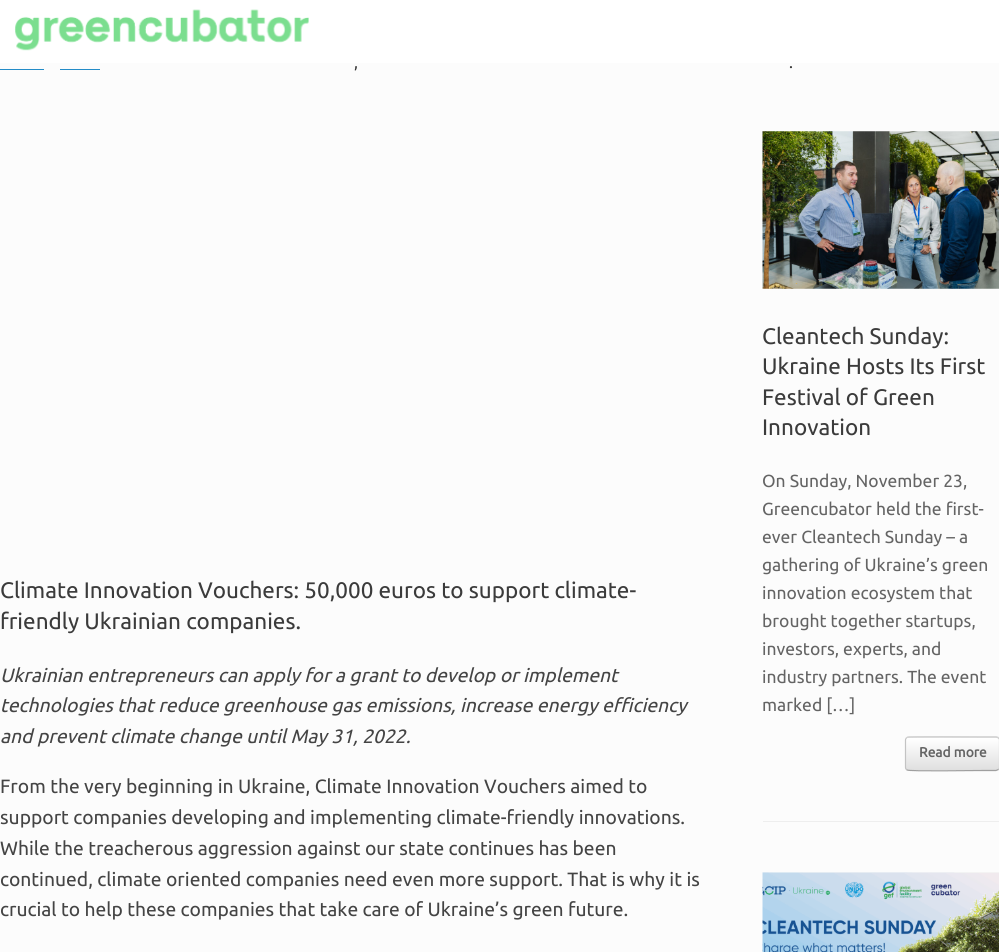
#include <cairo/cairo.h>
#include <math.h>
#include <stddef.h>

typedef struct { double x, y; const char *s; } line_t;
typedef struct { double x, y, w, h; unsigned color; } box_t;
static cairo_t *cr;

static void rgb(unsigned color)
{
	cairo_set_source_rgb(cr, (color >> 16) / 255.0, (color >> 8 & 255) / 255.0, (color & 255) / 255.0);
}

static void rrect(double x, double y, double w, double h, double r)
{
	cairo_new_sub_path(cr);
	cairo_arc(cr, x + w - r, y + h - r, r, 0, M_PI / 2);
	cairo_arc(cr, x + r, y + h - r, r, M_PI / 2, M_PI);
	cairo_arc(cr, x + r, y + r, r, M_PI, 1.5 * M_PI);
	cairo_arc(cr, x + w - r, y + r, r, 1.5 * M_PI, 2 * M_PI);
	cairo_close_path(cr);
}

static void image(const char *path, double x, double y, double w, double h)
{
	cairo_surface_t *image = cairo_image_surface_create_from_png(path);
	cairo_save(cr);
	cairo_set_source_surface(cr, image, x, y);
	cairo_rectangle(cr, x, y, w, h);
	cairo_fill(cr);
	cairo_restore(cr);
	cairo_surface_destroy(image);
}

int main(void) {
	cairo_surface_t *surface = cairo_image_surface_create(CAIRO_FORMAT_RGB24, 999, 952);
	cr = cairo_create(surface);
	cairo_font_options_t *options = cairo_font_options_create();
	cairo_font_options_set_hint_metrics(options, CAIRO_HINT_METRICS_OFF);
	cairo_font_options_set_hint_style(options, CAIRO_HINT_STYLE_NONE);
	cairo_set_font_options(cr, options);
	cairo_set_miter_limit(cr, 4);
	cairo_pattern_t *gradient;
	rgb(0xfcfcfc);
	cairo_paint(cr);
	rgb(0xffffff);
	cairo_rectangle(cr, 0, 0, 999, 63);
	cairo_fill(cr);
	image("img/1.png", 14, 9, 295, 42);
	{
		static const box_t items[] = {
			{0, 69, 44, 1, 0x248cc8},
			{60, 69, 40, 1, 0x248cc8},
			{763, 821, 236, 1, 0xeeeeee},
		};
		for (size_t i = 0; i < sizeof items / sizeof *items; i++) {
			rgb(items[i].color);
			cairo_rectangle(cr, items[i].x, items[i].y, items[i].w, items[i].h);
			cairo_fill(cr);
		}
	}
	image("img/2.png", 762, 131, 237, 158);
	cairo_save(cr);
	rrect(905, 736, 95, 35, 4);
	cairo_clip(cr);
	gradient = cairo_pattern_create_linear(906, 738, 906, 705);
	cairo_pattern_add_color_stop_rgba(gradient, 0, 0.875, 0.875, 0.875, 1);
	cairo_pattern_add_color_stop_rgba(gradient, 1, 1, 1, 1, 1);
	cairo_set_source(cr, gradient);
	cairo_pattern_destroy(gradient);
	cairo_rectangle(cr, 905, 736, 94, 2);
	cairo_fill(cr);
	gradient = cairo_pattern_create_linear(906, 770, 906, 738);
	cairo_pattern_add_color_stop_rgba(gradient, 0, 0.875, 0.875, 0.875, 1);
	cairo_pattern_add_color_stop_rgba(gradient, 1, 1, 1, 1, 1);
	cairo_set_source(cr, gradient);
	cairo_pattern_destroy(gradient);
	cairo_rectangle(cr, 905, 738, 94, 32);
	cairo_fill(cr);
	cairo_restore(cr);
	cairo_new_path(cr);
	cairo_move_to(cr, 906.5, 738);
	cairo_line_to(cr, 907, 737.5);
	cairo_curve_to(cr, 909, 736, 973.5, 737, 981.5, 737);
	cairo_line_to(cr, 996, 737);
	cairo_line_to(cr, 998.5, 738);
	rgb(0xd2d2d2);
	cairo_set_line_width(cr, 1.2);
	cairo_stroke(cr);
	cairo_new_path(cr);
	cairo_move_to(cr, 998.5, 738);
	cairo_curve_to(cr, 999, 738.5, 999.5, 739, 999.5, 740);
	cairo_line_to(cr, 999.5, 767.5);
	cairo_curve_to(cr, 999.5, 768.5, 999, 769, 998.5, 769.5);
	rgb(0xc3c3c3);
	cairo_stroke(cr);
	cairo_new_path(cr);
	cairo_move_to(cr, 998.5, 769.5);
	cairo_line_to(cr, 996, 770.5);
	cairo_line_to(cr, 981.5, 770.5);
	cairo_curve_to(cr, 973.5, 770.5, 909, 771.5, 907, 770);
	cairo_line_to(cr, 906.5, 769.5);
	rgb(0x9f9f9f);
	cairo_stroke(cr);
	cairo_new_path(cr);
	cairo_move_to(cr, 906.5, 769.5);
	cairo_curve_to(cr, 906, 769, 905.5, 768.5, 905.5, 767.5);
	cairo_line_to(cr, 905.5, 740);
	cairo_curve_to(cr, 905.5, 739, 906, 738.5, 906.5, 738);
	rgb(0xc3c3c3);
	cairo_stroke(cr);
	image("img/3.png", 762, 872, 237, 80);
	cairo_select_font_face(cr, "Ubuntu", CAIRO_FONT_SLANT_NORMAL, CAIRO_FONT_WEIGHT_NORMAL);
	cairo_set_font_size(cr, 16);
	rgb(0x333333);
	cairo_move_to(cr, 354, 68);
	cairo_show_text(cr, ",");
	cairo_move_to(cr, 789, 68);
	cairo_show_text(cr, ".");
	cairo_set_font_size(cr, 22.5);
	rgb(0x3b3b3b);
	cairo_move_to(cr, 0, 598);
	cairo_show_text(cr, "Climate Innovation Vouchers: 50,000 euros to support climate-");
	cairo_move_to(cr, 0, 629);
	cairo_show_text(cr, "friendly Ukrainian companies.");
	cairo_select_font_face(cr, "Ubuntu", CAIRO_FONT_SLANT_ITALIC, CAIRO_FONT_WEIGHT_NORMAL);
	cairo_set_font_size(cr, 19.25);
	rgb(0x444444);
	{
		static const line_t items[] = {
			{0, 682, "Ukrainian entrepreneurs can apply for a grant to develop or implement"},
			{0, 712, "technologies that reduce greenhouse gas emissions, increase energy efficiency"},
			{0, 743, "and prevent climate change until May 31, 2022."},
		};
		for (size_t i = 0; i < sizeof items / sizeof *items; i++) {
			cairo_move_to(cr, items[i].x, items[i].y);
			cairo_show_text(cr, items[i].s);
		}
	}
	cairo_select_font_face(cr, "Ubuntu", CAIRO_FONT_SLANT_NORMAL, CAIRO_FONT_WEIGHT_NORMAL);
	{
		static const line_t items[] = {
			{0, 793, "From the very beginning in Ukraine, Climate Innovation Vouchers aimed to"},
			{0, 824, "support companies developing and implementing climate-friendly innovations."},
			{0, 855, "While the treacherous aggression against our state continues has been"},
			{0, 886, "continued, climate oriented companies need even more support. That is why it is"},
			{0, 916, "crucial to help these companies that take care of Ukraine’s green future."},
		};
		for (size_t i = 0; i < sizeof items / sizeof *items; i++) {
			cairo_move_to(cr, items[i].x, items[i].y);
			cairo_show_text(cr, items[i].s);
		}
	}
	cairo_set_font_size(cr, 22.5);
	rgb(0x3b3b3b);
	{
		static const line_t items[] = {
			{762, 344, "Cleantech Sunday:"},
			{762, 374, "Ukraine Hosts Its First"},
			{762, 405, "Festival of Green"},
			{762, 435, "Innovation"},
		};
		for (size_t i = 0; i < sizeof items / sizeof *items; i++) {
			cairo_move_to(cr, items[i].x, items[i].y);
			cairo_show_text(cr, items[i].s);
		}
	}
	cairo_set_font_size(cr, 17.5);
	rgb(0x646464);
	{
		static const line_t items[] = {
			{762, 487, "On Sunday, November 23,"},
			{762, 515, "Greencubator held the first-"},
			{762, 543, "ever Cleantech Sunday – a"},
			{762, 571, "gathering of Ukraine’s green"},
			{762, 599, "innovation ecosystem that"},
			{762, 627, "brought together startups,"},
			{762, 655, "investors, experts, and"},
			{762, 683, "industry partners. The event"},
			{762, 711, "marked […]"},
		};
		for (size_t i = 0; i < sizeof items / sizeof *items; i++) {
			cairo_move_to(cr, items[i].x, items[i].y);
			cairo_show_text(cr, items[i].s);
		}
	}
	cairo_select_font_face(cr, "Ubuntu", CAIRO_FONT_SLANT_NORMAL, CAIRO_FONT_WEIGHT_BOLD);
	cairo_set_font_size(cr, 13.75);
	cairo_move_to(cr, 919, 757);
	cairo_show_text(cr, "Read more");
	cairo_surface_write_to_png(surface, "page.png");
	cairo_font_options_destroy(options);
	cairo_destroy(cr);
	cairo_surface_destroy(surface);
	return 0;
}
